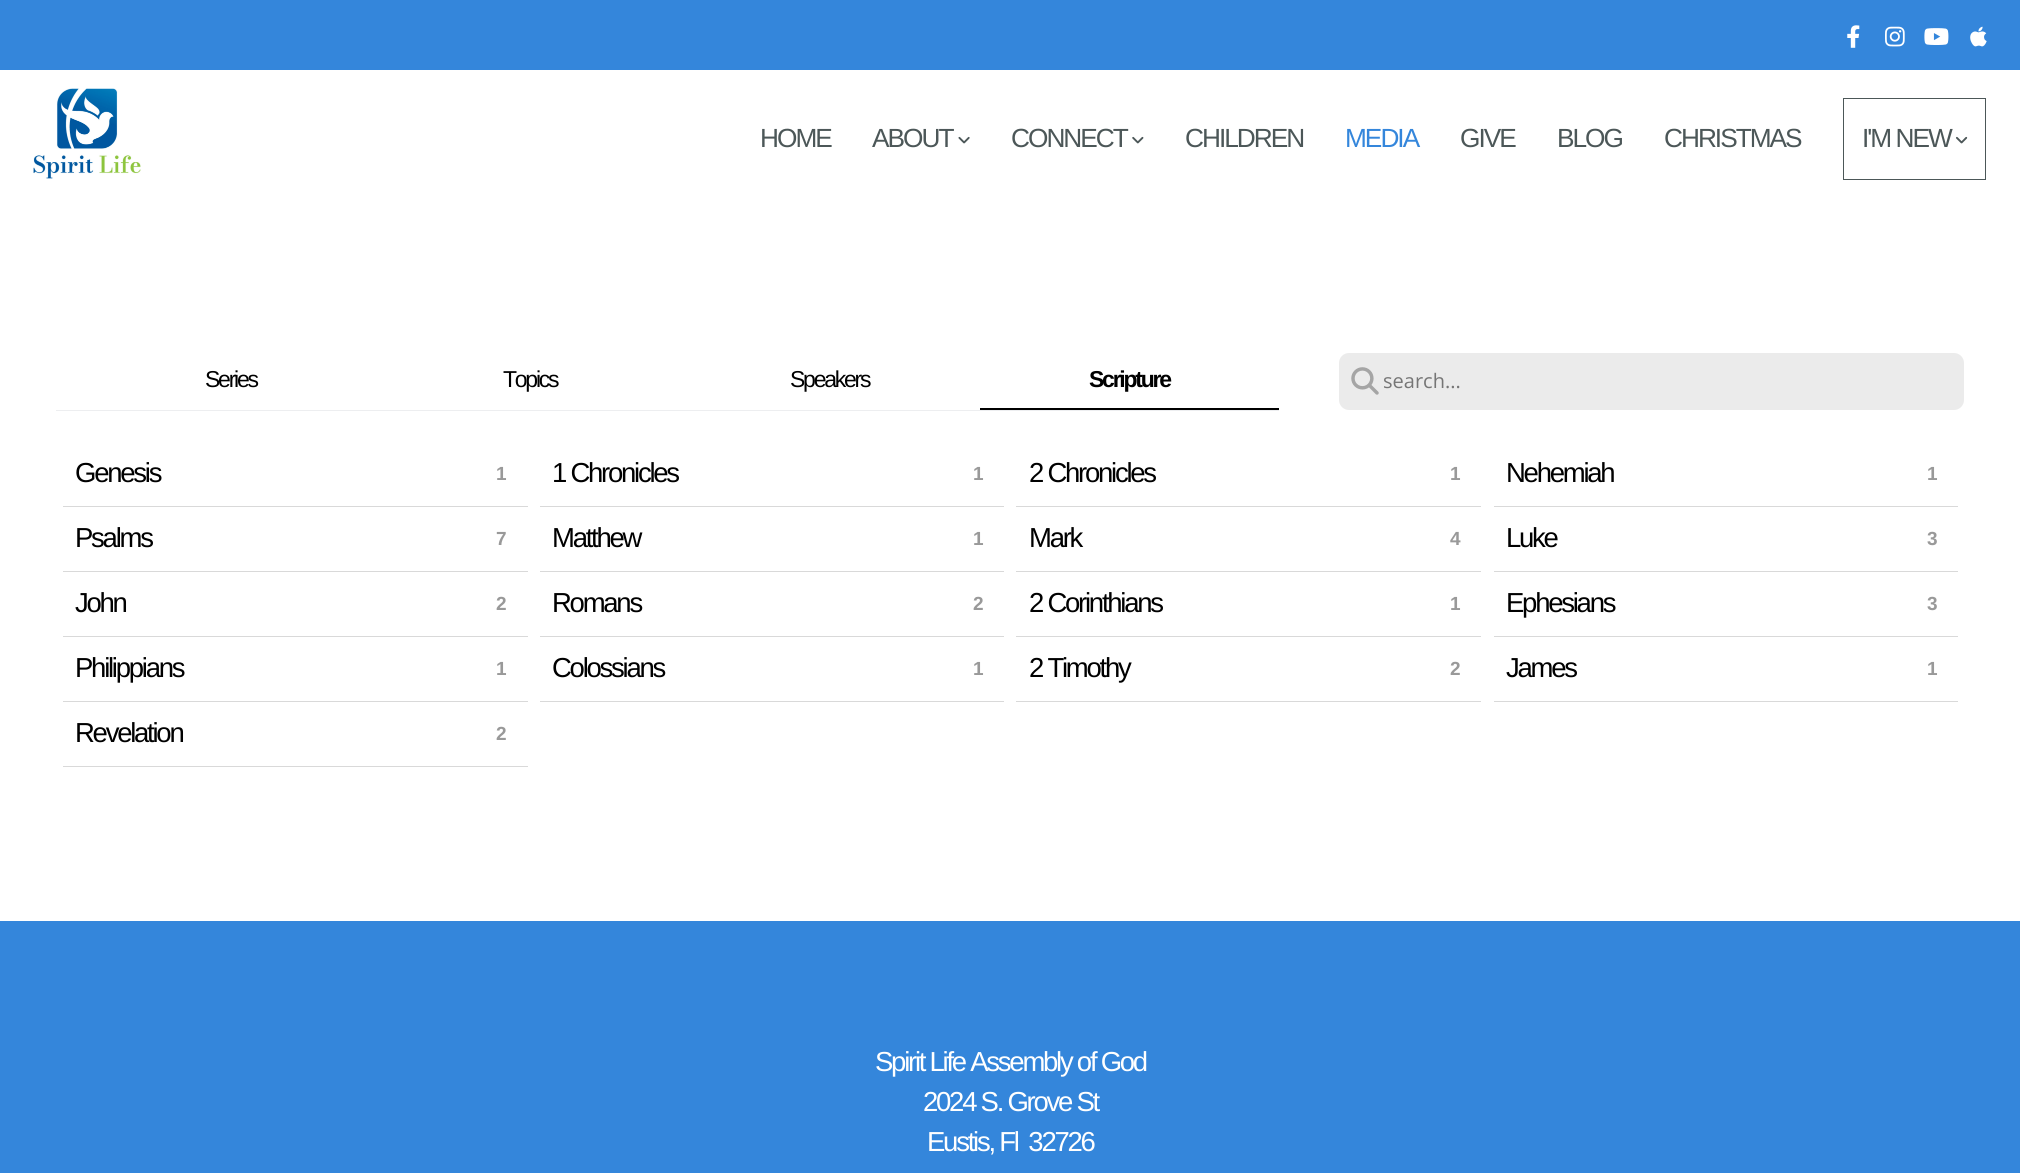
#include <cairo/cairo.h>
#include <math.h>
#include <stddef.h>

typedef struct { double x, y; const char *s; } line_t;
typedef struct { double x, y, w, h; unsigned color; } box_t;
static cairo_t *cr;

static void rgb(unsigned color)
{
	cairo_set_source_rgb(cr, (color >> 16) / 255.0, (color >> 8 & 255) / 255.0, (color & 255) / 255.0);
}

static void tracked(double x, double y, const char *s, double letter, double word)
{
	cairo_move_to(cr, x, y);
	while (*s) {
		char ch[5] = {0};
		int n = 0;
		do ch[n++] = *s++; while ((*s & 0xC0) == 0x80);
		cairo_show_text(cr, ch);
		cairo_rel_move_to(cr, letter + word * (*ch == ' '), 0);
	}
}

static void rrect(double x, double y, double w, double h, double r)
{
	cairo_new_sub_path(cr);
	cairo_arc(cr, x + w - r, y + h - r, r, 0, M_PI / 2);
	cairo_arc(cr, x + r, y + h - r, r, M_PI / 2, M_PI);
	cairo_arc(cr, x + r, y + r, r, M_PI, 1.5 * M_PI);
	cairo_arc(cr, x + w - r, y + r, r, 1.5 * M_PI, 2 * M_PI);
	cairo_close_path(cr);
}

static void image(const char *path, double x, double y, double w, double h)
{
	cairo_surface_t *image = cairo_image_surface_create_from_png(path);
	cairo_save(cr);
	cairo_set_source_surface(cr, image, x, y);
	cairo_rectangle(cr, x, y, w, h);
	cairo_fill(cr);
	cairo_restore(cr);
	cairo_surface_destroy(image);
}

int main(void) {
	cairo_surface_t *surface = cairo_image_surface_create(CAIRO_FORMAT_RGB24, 2020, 1173);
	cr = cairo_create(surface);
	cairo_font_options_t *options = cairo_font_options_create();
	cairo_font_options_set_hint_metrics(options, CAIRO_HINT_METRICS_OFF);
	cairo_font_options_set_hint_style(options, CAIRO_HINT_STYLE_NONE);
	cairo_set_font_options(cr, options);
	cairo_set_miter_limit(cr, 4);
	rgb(0xffffff);
	cairo_paint(cr);
	rgb(0x3486db);
	cairo_rectangle(cr, 0, 0, 2020, 70);
	cairo_fill(cr);
	image("img/1.png", 1847, 25, 13, 23);
	image("img/2.png", 1885, 26, 20, 21);
	image("img/3.png", 1924, 28, 25, 17);
	image("img/4.png", 1970, 26, 17, 21);
	image("img/5.png", 33, 88, 108, 91);
	image("img/6.png", 958, 136, 12, 8);
	image("img/7.png", 1132, 136, 12, 8);
	cairo_rectangle(cr, 1843.5, 98.5, 142, 81);
	rgb(0x4c5758);
	cairo_set_line_width(cr, 1);
	cairo_stroke(cr);
	image("img/8.png", 1956, 136, 12, 8);
	rgb(0xedeef0);
	cairo_rectangle(cr, 56, 410, 1223, 1);
	cairo_fill(cr);
	rgb(0x000000);
	cairo_rectangle(cr, 980, 408, 299, 2);
	cairo_fill(cr);
	rgb(0xebebeb);
	rrect(1339, 353, 625, 57, 10);
	cairo_fill(cr);
	image("img/9.png", 1351, 367, 28, 28);
	{
		static const box_t items[] = {
			{63, 506, 465, 1, 0xd9d9d9},
			{540, 506, 464, 1, 0xd9d9d9},
			{1016, 506, 465, 1, 0xd9d9d9},
			{1494, 506, 464, 1, 0xd9d9d9},
			{63, 571, 465, 1, 0xd9d9d9},
			{540, 571, 464, 1, 0xd9d9d9},
			{1016, 571, 465, 1, 0xd9d9d9},
			{1494, 571, 464, 1, 0xd9d9d9},
			{63, 636, 465, 1, 0xd9d9d9},
			{540, 636, 464, 1, 0xd9d9d9},
			{1016, 636, 465, 1, 0xd9d9d9},
			{1494, 636, 464, 1, 0xd9d9d9},
			{63, 701, 465, 1, 0xd9d9d9},
			{540, 701, 464, 1, 0xd9d9d9},
			{1016, 701, 465, 1, 0xd9d9d9},
			{1494, 701, 464, 1, 0xd9d9d9},
			{63, 766, 465, 1, 0xd9d9d9},
			{0, 921, 2020, 252, 0x3486db},
		};
		for (size_t i = 0; i < sizeof items / sizeof *items; i++) {
			rgb(items[i].color);
			cairo_rectangle(cr, items[i].x, items[i].y, items[i].w, items[i].h);
			cairo_fill(cr);
		}
	}
	cairo_select_font_face(cr, "Liberation Sans", CAIRO_FONT_SLANT_NORMAL, CAIRO_FONT_WEIGHT_NORMAL);
	cairo_set_font_size(cr, 26.25);
	rgb(0x4c5758);
	{
		static const line_t items[] = {
			{760, 147, "HOME"},
			{872, 147, "ABOUT"},
			{1011, 147, "CONNECT"},
			{1185, 147, "CHILDREN"},
		};
		for (size_t i = 0; i < sizeof items / sizeof *items; i++) {
			tracked(items[i].x, items[i].y, items[i].s, -2, 0);
		}
	}
	rgb(0x3486db);
	tracked(1345, 147, "MEDIA", -2, 0);
	rgb(0x4c5758);
	{
		static const line_t items[] = {
			{1460, 147, "GIVE"},
			{1557, 147, "BLOG"},
			{1664, 147, "CHRISTMAS"},
			{1862, 147, "I'M NEW"},
		};
		for (size_t i = 0; i < sizeof items / sizeof *items; i++) {
			tracked(items[i].x, items[i].y, items[i].s, -2, 0);
		}
	}
	cairo_set_font_size(cr, 23);
	rgb(0x000000);
	{
		static const line_t items[] = {
			{205, 387, "Series"},
			{503, 387, "Topics"},
			{790, 387, "Speakers"},
		};
		for (size_t i = 0; i < sizeof items / sizeof *items; i++) {
			tracked(items[i].x, items[i].y, items[i].s, -2.25, 0);
		}
	}
	cairo_select_font_face(cr, "Liberation Sans", CAIRO_FONT_SLANT_NORMAL, CAIRO_FONT_WEIGHT_BOLD);
	tracked(1089, 387, "Scripture", -2.25, 0);
	cairo_select_font_face(cr, "Open Sans", CAIRO_FONT_SLANT_NORMAL, CAIRO_FONT_WEIGHT_NORMAL);
	cairo_set_font_size(cr, 20);
	rgb(0x767676);
	cairo_move_to(cr, 1383, 388);
	cairo_show_text(cr, "search...");
	cairo_select_font_face(cr, "Liberation Sans", CAIRO_FONT_SLANT_NORMAL, CAIRO_FONT_WEIGHT_NORMAL);
	cairo_set_font_size(cr, 27.5);
	rgb(0x000000);
	tracked(75, 482, "Genesis", -2.25, 0);
	cairo_select_font_face(cr, "Liberation Sans", CAIRO_FONT_SLANT_NORMAL, CAIRO_FONT_WEIGHT_BOLD);
	cairo_set_font_size(cr, 19);
	rgb(0x999999);
	tracked(496, 480, "1", -2.25, 0);
	cairo_select_font_face(cr, "Liberation Sans", CAIRO_FONT_SLANT_NORMAL, CAIRO_FONT_WEIGHT_NORMAL);
	cairo_set_font_size(cr, 27.5);
	rgb(0x000000);
	tracked(552, 482, "1 Chronicles", -2.25, 0);
	cairo_select_font_face(cr, "Liberation Sans", CAIRO_FONT_SLANT_NORMAL, CAIRO_FONT_WEIGHT_BOLD);
	cairo_set_font_size(cr, 19);
	rgb(0x999999);
	tracked(973, 480, "1", -2.25, 0);
	cairo_select_font_face(cr, "Liberation Sans", CAIRO_FONT_SLANT_NORMAL, CAIRO_FONT_WEIGHT_NORMAL);
	cairo_set_font_size(cr, 27.5);
	rgb(0x000000);
	tracked(1029, 482, "2 Chronicles", -2.25, 0);
	cairo_select_font_face(cr, "Liberation Sans", CAIRO_FONT_SLANT_NORMAL, CAIRO_FONT_WEIGHT_BOLD);
	cairo_set_font_size(cr, 19);
	rgb(0x999999);
	tracked(1450, 480, "1", -2.25, 0);
	cairo_select_font_face(cr, "Liberation Sans", CAIRO_FONT_SLANT_NORMAL, CAIRO_FONT_WEIGHT_NORMAL);
	cairo_set_font_size(cr, 27.5);
	rgb(0x000000);
	tracked(1506, 482, "Nehemiah", -2.25, 0);
	cairo_select_font_face(cr, "Liberation Sans", CAIRO_FONT_SLANT_NORMAL, CAIRO_FONT_WEIGHT_BOLD);
	cairo_set_font_size(cr, 19);
	rgb(0x999999);
	tracked(1927, 480, "1", -2.25, 0);
	cairo_select_font_face(cr, "Liberation Sans", CAIRO_FONT_SLANT_NORMAL, CAIRO_FONT_WEIGHT_NORMAL);
	cairo_set_font_size(cr, 27.5);
	rgb(0x000000);
	tracked(75, 547, "Psalms", -2.25, 0);
	cairo_select_font_face(cr, "Liberation Sans", CAIRO_FONT_SLANT_NORMAL, CAIRO_FONT_WEIGHT_BOLD);
	cairo_set_font_size(cr, 19);
	rgb(0x999999);
	tracked(496, 545, "7", -2.25, 0);
	cairo_select_font_face(cr, "Liberation Sans", CAIRO_FONT_SLANT_NORMAL, CAIRO_FONT_WEIGHT_NORMAL);
	cairo_set_font_size(cr, 27.5);
	rgb(0x000000);
	tracked(552, 547, "Matthew", -2.25, 0);
	cairo_select_font_face(cr, "Liberation Sans", CAIRO_FONT_SLANT_NORMAL, CAIRO_FONT_WEIGHT_BOLD);
	cairo_set_font_size(cr, 19);
	rgb(0x999999);
	tracked(973, 545, "1", -2.25, 0);
	cairo_select_font_face(cr, "Liberation Sans", CAIRO_FONT_SLANT_NORMAL, CAIRO_FONT_WEIGHT_NORMAL);
	cairo_set_font_size(cr, 27.5);
	rgb(0x000000);
	tracked(1029, 547, "Mark", -2.25, 0);
	cairo_select_font_face(cr, "Liberation Sans", CAIRO_FONT_SLANT_NORMAL, CAIRO_FONT_WEIGHT_BOLD);
	cairo_set_font_size(cr, 19);
	rgb(0x999999);
	tracked(1450, 545, "4", -2.25, 0);
	cairo_select_font_face(cr, "Liberation Sans", CAIRO_FONT_SLANT_NORMAL, CAIRO_FONT_WEIGHT_NORMAL);
	cairo_set_font_size(cr, 27.5);
	rgb(0x000000);
	tracked(1506, 547, "Luke", -2.25, 0);
	cairo_select_font_face(cr, "Liberation Sans", CAIRO_FONT_SLANT_NORMAL, CAIRO_FONT_WEIGHT_BOLD);
	cairo_set_font_size(cr, 19);
	rgb(0x999999);
	tracked(1927, 545, "3", -2.25, 0);
	cairo_select_font_face(cr, "Liberation Sans", CAIRO_FONT_SLANT_NORMAL, CAIRO_FONT_WEIGHT_NORMAL);
	cairo_set_font_size(cr, 27.5);
	rgb(0x000000);
	tracked(75, 612, "John", -2.25, 0);
	cairo_select_font_face(cr, "Liberation Sans", CAIRO_FONT_SLANT_NORMAL, CAIRO_FONT_WEIGHT_BOLD);
	cairo_set_font_size(cr, 19);
	rgb(0x999999);
	tracked(496, 610, "2", -2.25, 0);
	cairo_select_font_face(cr, "Liberation Sans", CAIRO_FONT_SLANT_NORMAL, CAIRO_FONT_WEIGHT_NORMAL);
	cairo_set_font_size(cr, 27.5);
	rgb(0x000000);
	tracked(552, 612, "Romans", -2.25, 0);
	cairo_select_font_face(cr, "Liberation Sans", CAIRO_FONT_SLANT_NORMAL, CAIRO_FONT_WEIGHT_BOLD);
	cairo_set_font_size(cr, 19);
	rgb(0x999999);
	tracked(973, 610, "2", -2.25, 0);
	cairo_select_font_face(cr, "Liberation Sans", CAIRO_FONT_SLANT_NORMAL, CAIRO_FONT_WEIGHT_NORMAL);
	cairo_set_font_size(cr, 27.5);
	rgb(0x000000);
	tracked(1029, 612, "2 Corinthians", -2.25, 0);
	cairo_select_font_face(cr, "Liberation Sans", CAIRO_FONT_SLANT_NORMAL, CAIRO_FONT_WEIGHT_BOLD);
	cairo_set_font_size(cr, 19);
	rgb(0x999999);
	tracked(1450, 610, "1", -2.25, 0);
	cairo_select_font_face(cr, "Liberation Sans", CAIRO_FONT_SLANT_NORMAL, CAIRO_FONT_WEIGHT_NORMAL);
	cairo_set_font_size(cr, 27.5);
	rgb(0x000000);
	tracked(1506, 612, "Ephesians", -2.25, 0);
	cairo_select_font_face(cr, "Liberation Sans", CAIRO_FONT_SLANT_NORMAL, CAIRO_FONT_WEIGHT_BOLD);
	cairo_set_font_size(cr, 19);
	rgb(0x999999);
	tracked(1927, 610, "3", -2.25, 0);
	cairo_select_font_face(cr, "Liberation Sans", CAIRO_FONT_SLANT_NORMAL, CAIRO_FONT_WEIGHT_NORMAL);
	cairo_set_font_size(cr, 27.5);
	rgb(0x000000);
	tracked(75, 677, "Philippians", -2.25, 0);
	cairo_select_font_face(cr, "Liberation Sans", CAIRO_FONT_SLANT_NORMAL, CAIRO_FONT_WEIGHT_BOLD);
	cairo_set_font_size(cr, 19);
	rgb(0x999999);
	tracked(496, 675, "1", -2.25, 0);
	cairo_select_font_face(cr, "Liberation Sans", CAIRO_FONT_SLANT_NORMAL, CAIRO_FONT_WEIGHT_NORMAL);
	cairo_set_font_size(cr, 27.5);
	rgb(0x000000);
	tracked(552, 677, "Colossians", -2.25, 0);
	cairo_select_font_face(cr, "Liberation Sans", CAIRO_FONT_SLANT_NORMAL, CAIRO_FONT_WEIGHT_BOLD);
	cairo_set_font_size(cr, 19);
	rgb(0x999999);
	tracked(973, 675, "1", -2.25, 0);
	cairo_select_font_face(cr, "Liberation Sans", CAIRO_FONT_SLANT_NORMAL, CAIRO_FONT_WEIGHT_NORMAL);
	cairo_set_font_size(cr, 27.5);
	rgb(0x000000);
	tracked(1029, 677, "2 Timothy", -2.25, 0);
	cairo_select_font_face(cr, "Liberation Sans", CAIRO_FONT_SLANT_NORMAL, CAIRO_FONT_WEIGHT_BOLD);
	cairo_set_font_size(cr, 19);
	rgb(0x999999);
	tracked(1450, 675, "2", -2.25, 0);
	cairo_select_font_face(cr, "Liberation Sans", CAIRO_FONT_SLANT_NORMAL, CAIRO_FONT_WEIGHT_NORMAL);
	cairo_set_font_size(cr, 27.5);
	rgb(0x000000);
	tracked(1506, 677, "James", -2.25, 0);
	cairo_select_font_face(cr, "Liberation Sans", CAIRO_FONT_SLANT_NORMAL, CAIRO_FONT_WEIGHT_BOLD);
	cairo_set_font_size(cr, 19);
	rgb(0x999999);
	tracked(1927, 675, "1", -2.25, 0);
	cairo_select_font_face(cr, "Liberation Sans", CAIRO_FONT_SLANT_NORMAL, CAIRO_FONT_WEIGHT_NORMAL);
	cairo_set_font_size(cr, 27.5);
	rgb(0x000000);
	tracked(75, 742, "Revelation", -2.25, 0);
	cairo_select_font_face(cr, "Liberation Sans", CAIRO_FONT_SLANT_NORMAL, CAIRO_FONT_WEIGHT_BOLD);
	cairo_set_font_size(cr, 19);
	rgb(0x999999);
	tracked(496, 740, "2", -2.25, 0);
	cairo_select_font_face(cr, "Liberation Sans", CAIRO_FONT_SLANT_NORMAL, CAIRO_FONT_WEIGHT_NORMAL);
	cairo_set_font_size(cr, 27.5);
	rgb(0xffffff);
	{
		static const line_t items[] = {
			{875, 1071, "Spirit Life Assembly of God"},
			{923, 1111, "2024 S. Grove St"},
			{927, 1151, "Eustis, Fl  32726"},
		};
		for (size_t i = 0; i < sizeof items / sizeof *items; i++) {
			tracked(items[i].x, items[i].y, items[i].s, -2.25, 0);
		}
	}
	cairo_surface_write_to_png(surface, "page.png");
	cairo_font_options_destroy(options);
	cairo_destroy(cr);
	cairo_surface_destroy(surface);
	return 0;
}
